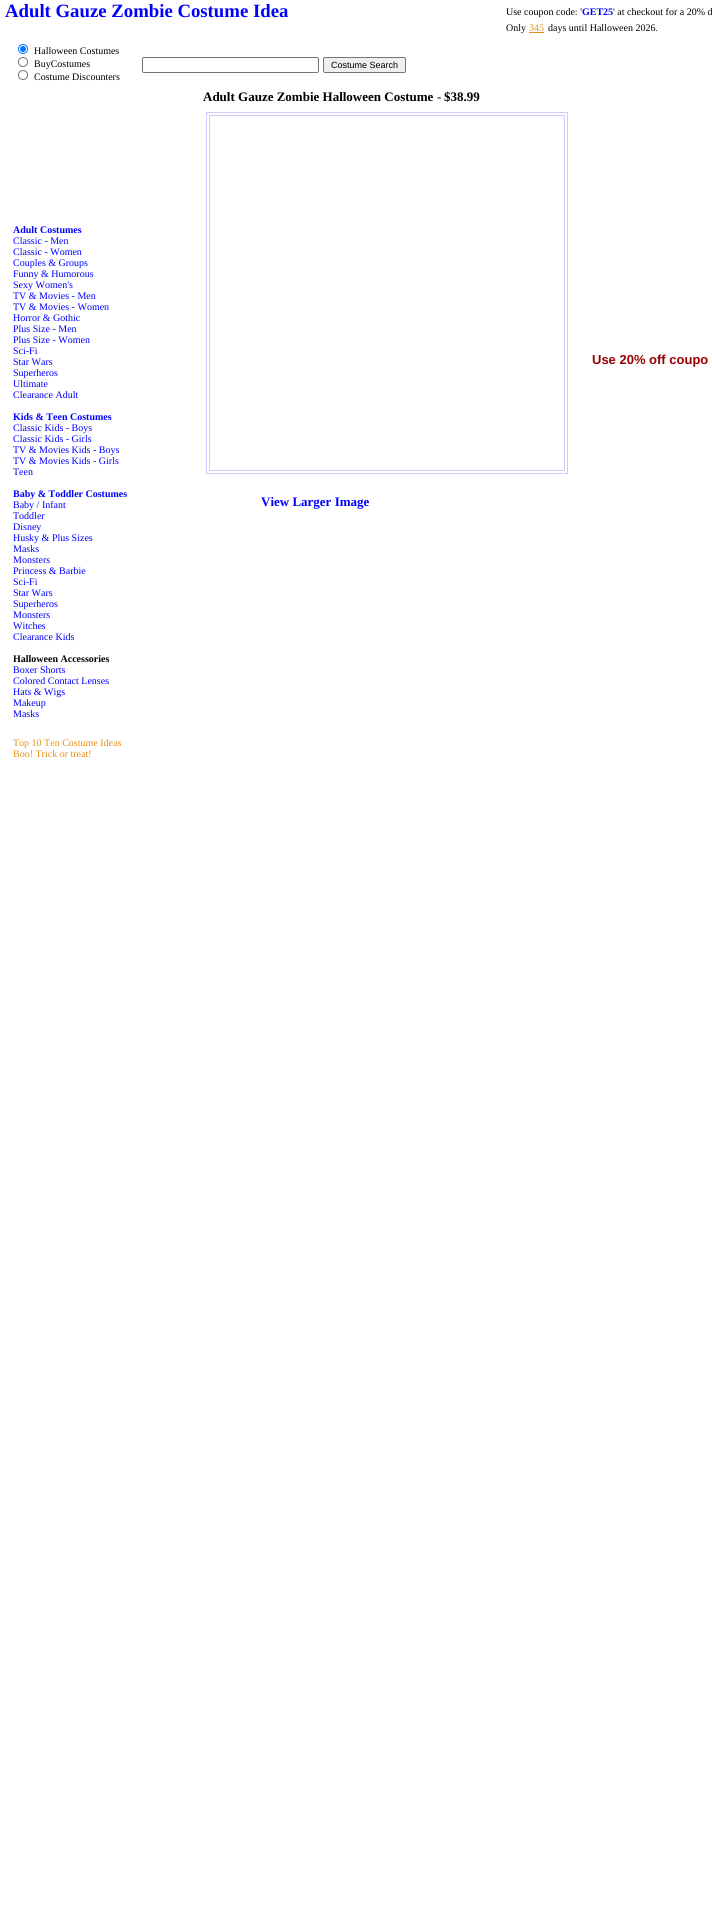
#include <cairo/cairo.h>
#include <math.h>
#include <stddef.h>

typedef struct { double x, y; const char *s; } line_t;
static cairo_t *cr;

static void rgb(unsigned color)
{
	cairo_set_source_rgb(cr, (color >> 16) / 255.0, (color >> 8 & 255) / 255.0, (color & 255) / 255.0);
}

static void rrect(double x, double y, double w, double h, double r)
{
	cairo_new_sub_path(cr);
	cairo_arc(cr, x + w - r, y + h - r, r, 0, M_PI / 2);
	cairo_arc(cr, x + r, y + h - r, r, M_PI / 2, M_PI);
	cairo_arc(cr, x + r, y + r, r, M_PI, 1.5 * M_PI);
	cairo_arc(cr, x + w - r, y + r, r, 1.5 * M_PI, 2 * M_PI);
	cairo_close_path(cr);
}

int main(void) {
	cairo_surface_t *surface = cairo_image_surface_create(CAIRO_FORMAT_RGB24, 712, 1921);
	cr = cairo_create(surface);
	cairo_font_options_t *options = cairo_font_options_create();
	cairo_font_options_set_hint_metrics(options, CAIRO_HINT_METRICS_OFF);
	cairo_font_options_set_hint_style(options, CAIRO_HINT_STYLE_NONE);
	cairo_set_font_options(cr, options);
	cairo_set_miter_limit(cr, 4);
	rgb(0xffffff);
	cairo_paint(cr);
	rgb(0xe78f18);
	cairo_rectangle(cr, 529, 32, 15, 1);
	cairo_fill(cr);
	cairo_arc(cr, 23, 49, 4.5, 0, 2 * M_PI);
	rgb(0x0075ff);
	cairo_set_line_width(cr, 1);
	cairo_stroke(cr);
	cairo_arc(cr, 23, 49, 3, 0, 2 * M_PI);
	cairo_fill(cr);
	cairo_arc(cr, 23, 62, 4.5, 0, 2 * M_PI);
	rgb(0x767676);
	cairo_stroke(cr);
	cairo_arc(cr, 23, 75, 4.5, 0, 2 * M_PI);
	cairo_stroke(cr);
	rrect(142.5, 57.5, 176, 15, 1.5);
	cairo_stroke(cr);
	rgb(0xefefef);
	rrect(323.5, 57.5, 82, 15, 1.5);
	cairo_fill_preserve(cr);
	rgb(0x767676);
	cairo_stroke(cr);
	cairo_rectangle(cr, 206.5, 112.5, 361, 361);
	rgb(0xccccff);
	cairo_stroke(cr);
	cairo_rectangle(cr, 209.5, 115.5, 355, 355);
	cairo_stroke(cr);
	cairo_select_font_face(cr, "Liberation Serif", CAIRO_FONT_SLANT_NORMAL, CAIRO_FONT_WEIGHT_BOLD);
	cairo_set_font_size(cr, 18.75);
	rgb(0x0000ff);
	cairo_move_to(cr, 5, 17);
	cairo_show_text(cr, "Adult Gauze Zombie Costume Idea");
	cairo_select_font_face(cr, "Liberation Serif", CAIRO_FONT_SLANT_NORMAL, CAIRO_FONT_WEIGHT_NORMAL);
	cairo_set_font_size(cr, 10);
	rgb(0x000000);
	cairo_move_to(cr, 506, 15);
	cairo_show_text(cr, "Use coupon code: '");
	cairo_select_font_face(cr, "Liberation Serif", CAIRO_FONT_SLANT_NORMAL, CAIRO_FONT_WEIGHT_BOLD);
	rgb(0x0000ff);
	cairo_move_to(cr, 582, 15);
	cairo_show_text(cr, "GET25");
	cairo_select_font_face(cr, "Liberation Serif", CAIRO_FONT_SLANT_NORMAL, CAIRO_FONT_WEIGHT_NORMAL);
	rgb(0x000000);
	cairo_move_to(cr, 613, 15);
	cairo_show_text(cr, "' at checkout for a 20% d");
	cairo_move_to(cr, 506, 31);
	cairo_show_text(cr, "Only");
	rgb(0xe78f18);
	cairo_move_to(cr, 529, 31);
	cairo_show_text(cr, "345");
	rgb(0x000000);
	{
		static const line_t items[] = {
			{548, 31, "days until Halloween 2026."},
			{34, 54, "Halloween Costumes"},
			{34, 67, "BuyCostumes"},
			{34, 80, "Costume Discounters"},
		};
		for (size_t i = 0; i < sizeof items / sizeof *items; i++) {
			cairo_move_to(cr, items[i].x, items[i].y);
			cairo_show_text(cr, items[i].s);
		}
	}
	cairo_select_font_face(cr, "Liberation Sans", CAIRO_FONT_SLANT_NORMAL, CAIRO_FONT_WEIGHT_NORMAL);
	cairo_set_font_size(cr, 9);
	cairo_move_to(cr, 331, 68);
	cairo_show_text(cr, "Costume Search");
	cairo_select_font_face(cr, "Liberation Serif", CAIRO_FONT_SLANT_NORMAL, CAIRO_FONT_WEIGHT_BOLD);
	cairo_set_font_size(cr, 10);
	rgb(0x0000ff);
	cairo_move_to(cr, 13, 233);
	cairo_show_text(cr, "Adult Costumes");
	cairo_select_font_face(cr, "Liberation Serif", CAIRO_FONT_SLANT_NORMAL, CAIRO_FONT_WEIGHT_NORMAL);
	{
		static const line_t items[] = {
			{13, 244, "Classic - Men"},
			{13, 255, "Classic - Women"},
			{13, 266, "Couples & Groups"},
			{13, 277, "Funny & Humorous"},
			{13, 288, "Sexy Women's"},
			{13, 299, "TV & Movies - Men"},
			{13, 310, "TV & Movies - Women"},
			{13, 321, "Horror & Gothic"},
			{13, 332, "Plus Size - Men"},
			{13, 343, "Plus Size - Women"},
			{13, 354, "Sci-Fi"},
			{13, 365, "Star Wars"},
			{13, 376, "Superheros"},
			{13, 387, "Ultimate"},
			{13, 398, "Clearance Adult"},
		};
		for (size_t i = 0; i < sizeof items / sizeof *items; i++) {
			cairo_move_to(cr, items[i].x, items[i].y);
			cairo_show_text(cr, items[i].s);
		}
	}
	cairo_select_font_face(cr, "Liberation Serif", CAIRO_FONT_SLANT_NORMAL, CAIRO_FONT_WEIGHT_BOLD);
	cairo_move_to(cr, 13, 420);
	cairo_show_text(cr, "Kids & Teen Costumes");
	cairo_select_font_face(cr, "Liberation Serif", CAIRO_FONT_SLANT_NORMAL, CAIRO_FONT_WEIGHT_NORMAL);
	{
		static const line_t items[] = {
			{13, 431, "Classic Kids - Boys"},
			{13, 442, "Classic Kids - Girls"},
			{13, 453, "TV & Movies Kids - Boys"},
			{13, 464, "TV & Movies Kids - Girls"},
			{13, 475, "Teen"},
		};
		for (size_t i = 0; i < sizeof items / sizeof *items; i++) {
			cairo_move_to(cr, items[i].x, items[i].y);
			cairo_show_text(cr, items[i].s);
		}
	}
	cairo_select_font_face(cr, "Liberation Serif", CAIRO_FONT_SLANT_NORMAL, CAIRO_FONT_WEIGHT_BOLD);
	cairo_move_to(cr, 13, 497);
	cairo_show_text(cr, "Baby & Toddler Costumes");
	cairo_select_font_face(cr, "Liberation Serif", CAIRO_FONT_SLANT_NORMAL, CAIRO_FONT_WEIGHT_NORMAL);
	{
		static const line_t items[] = {
			{13, 508, "Baby / Infant"},
			{13, 519, "Toddler"},
			{13, 530, "Disney"},
			{13, 541, "Husky & Plus Sizes"},
			{13, 552, "Masks"},
			{13, 563, "Monsters"},
			{13, 574, "Princess & Barbie"},
			{13, 585, "Sci-Fi"},
			{13, 596, "Star Wars"},
			{13, 607, "Superheros"},
			{13, 618, "Monsters"},
			{13, 629, "Witches"},
			{13, 640, "Clearance Kids"},
		};
		for (size_t i = 0; i < sizeof items / sizeof *items; i++) {
			cairo_move_to(cr, items[i].x, items[i].y);
			cairo_show_text(cr, items[i].s);
		}
	}
	cairo_select_font_face(cr, "Liberation Serif", CAIRO_FONT_SLANT_NORMAL, CAIRO_FONT_WEIGHT_BOLD);
	rgb(0x000000);
	cairo_move_to(cr, 13, 662);
	cairo_show_text(cr, "Halloween Accessories");
	cairo_select_font_face(cr, "Liberation Serif", CAIRO_FONT_SLANT_NORMAL, CAIRO_FONT_WEIGHT_NORMAL);
	rgb(0x0000ff);
	{
		static const line_t items[] = {
			{13, 673, "Boxer Shorts"},
			{13, 684, "Colored Contact Lenses"},
			{13, 695, "Hats & Wigs"},
			{13, 706, "Makeup"},
			{13, 717, "Masks"},
		};
		for (size_t i = 0; i < sizeof items / sizeof *items; i++) {
			cairo_move_to(cr, items[i].x, items[i].y);
			cairo_show_text(cr, items[i].s);
		}
	}
	rgb(0xe78f18);
	cairo_move_to(cr, 13, 746);
	cairo_show_text(cr, "Top 10 Ten Costume Ideas");
	cairo_move_to(cr, 13, 757);
	cairo_show_text(cr, "Boo! Trick or treat!");
	cairo_select_font_face(cr, "Liberation Serif", CAIRO_FONT_SLANT_NORMAL, CAIRO_FONT_WEIGHT_BOLD);
	cairo_set_font_size(cr, 13);
	rgb(0x000000);
	cairo_move_to(cr, 203, 101);
	cairo_show_text(cr, "Adult Gauze Zombie Halloween Costume");
	cairo_select_font_face(cr, "Liberation Serif", CAIRO_FONT_SLANT_NORMAL, CAIRO_FONT_WEIGHT_NORMAL);
	cairo_move_to(cr, 437, 101);
	cairo_show_text(cr, "-");
	cairo_select_font_face(cr, "Liberation Serif", CAIRO_FONT_SLANT_NORMAL, CAIRO_FONT_WEIGHT_BOLD);
	cairo_move_to(cr, 444, 101);
	cairo_show_text(cr, "$38.99");
	cairo_select_font_face(cr, "Liberation Sans", CAIRO_FONT_SLANT_NORMAL, CAIRO_FONT_WEIGHT_BOLD);
	rgb(0x990000);
	cairo_move_to(cr, 592, 364);
	cairo_show_text(cr, "Use 20% off coupo");
	cairo_select_font_face(cr, "Liberation Serif", CAIRO_FONT_SLANT_NORMAL, CAIRO_FONT_WEIGHT_BOLD);
	rgb(0x0000ff);
	cairo_move_to(cr, 261, 506);
	cairo_show_text(cr, "View Larger Image");
	cairo_surface_write_to_png(surface, "page.png");
	cairo_font_options_destroy(options);
	cairo_destroy(cr);
	cairo_surface_destroy(surface);
	return 0;
}
